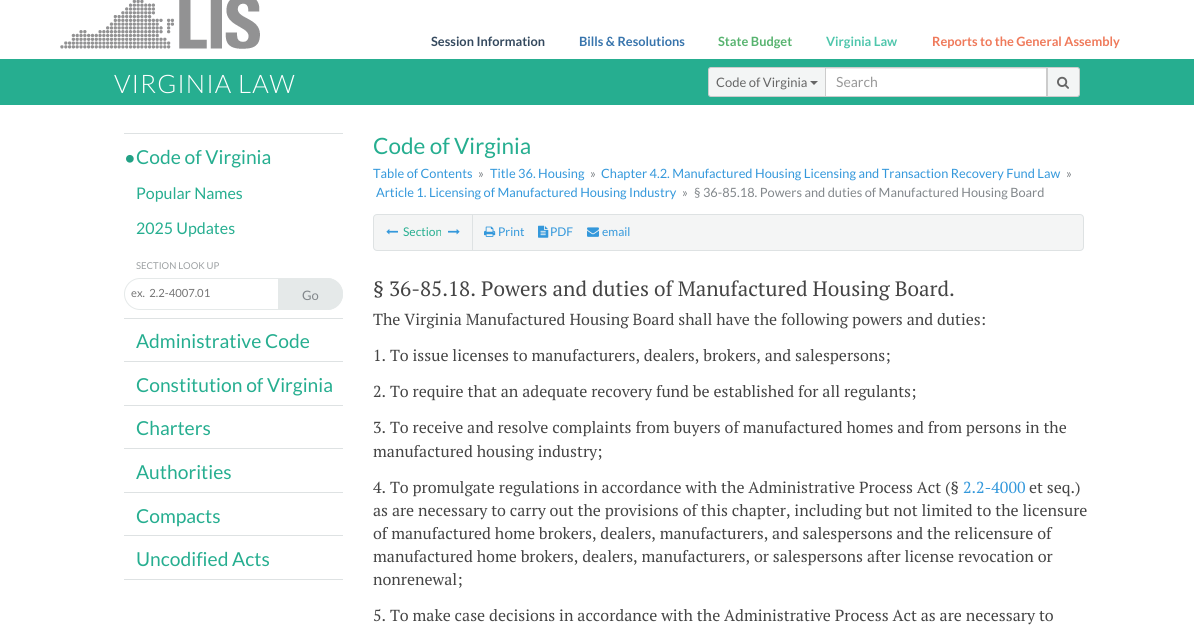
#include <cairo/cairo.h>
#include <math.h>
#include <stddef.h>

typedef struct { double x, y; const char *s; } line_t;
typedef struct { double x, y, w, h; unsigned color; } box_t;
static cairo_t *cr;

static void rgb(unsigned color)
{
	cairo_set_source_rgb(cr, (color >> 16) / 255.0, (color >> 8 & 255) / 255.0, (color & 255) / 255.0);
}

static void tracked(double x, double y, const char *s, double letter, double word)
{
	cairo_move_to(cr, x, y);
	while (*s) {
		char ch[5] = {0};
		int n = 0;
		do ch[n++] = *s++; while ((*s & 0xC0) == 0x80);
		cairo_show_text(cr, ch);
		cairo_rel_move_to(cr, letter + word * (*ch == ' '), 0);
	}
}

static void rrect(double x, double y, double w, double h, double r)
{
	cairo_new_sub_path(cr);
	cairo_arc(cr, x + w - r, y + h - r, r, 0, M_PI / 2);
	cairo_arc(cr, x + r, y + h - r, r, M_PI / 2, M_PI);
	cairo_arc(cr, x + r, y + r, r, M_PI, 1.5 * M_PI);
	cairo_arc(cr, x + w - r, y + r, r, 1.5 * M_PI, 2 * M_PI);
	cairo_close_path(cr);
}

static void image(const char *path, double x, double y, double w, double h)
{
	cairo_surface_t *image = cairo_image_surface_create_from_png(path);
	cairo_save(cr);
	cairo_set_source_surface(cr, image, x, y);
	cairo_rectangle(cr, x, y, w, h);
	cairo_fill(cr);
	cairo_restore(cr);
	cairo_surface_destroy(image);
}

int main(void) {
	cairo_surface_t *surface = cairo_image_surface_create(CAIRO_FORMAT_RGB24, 1194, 632);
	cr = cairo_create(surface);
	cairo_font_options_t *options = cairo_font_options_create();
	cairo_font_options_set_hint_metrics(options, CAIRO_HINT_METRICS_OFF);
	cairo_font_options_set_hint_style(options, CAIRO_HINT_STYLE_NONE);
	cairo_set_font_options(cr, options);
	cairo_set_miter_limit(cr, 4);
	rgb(0xffffff);
	cairo_paint(cr);
	image("img/1.png", 60, 0, 200, 49);
	{
		static const box_t items[] = {
			{0, 59, 1194, 46, 0x26ae90},
			{826, 69, 220, 27, 0xffffff},
			{826, 68, 220, 1, 0xececec},
		};
		for (size_t i = 0; i < sizeof items / sizeof *items; i++) {
			rgb(items[i].color);
			cairo_rectangle(cr, items[i].x, items[i].y, items[i].w, items[i].h);
			cairo_fill(cr);
		}
	}
	cairo_rectangle(cr, 825.5, 67.5, 221, 29);
	rgb(0xcccccc);
	cairo_set_line_width(cr, 1);
	cairo_stroke(cr);
	rgb(0xf3f5f5);
	cairo_new_path(cr);
	cairo_move_to(cr, 711, 67.5);
	cairo_line_to(cr, 825.5, 67.5);
	cairo_line_to(cr, 825.5, 96.5);
	cairo_line_to(cr, 711, 96.5);
	cairo_curve_to(cr, 709.5, 96.5, 708.5, 95.5, 708.5, 94);
	cairo_line_to(cr, 708.5, 70);
	cairo_curve_to(cr, 708.5, 68.5, 709.5, 67.5, 711, 67.5);
	cairo_close_path(cr);
	cairo_fill_preserve(cr);
	rgb(0xcccccc);
	cairo_stroke(cr);
	rgb(0x666666);
	cairo_new_path(cr);
	cairo_move_to(cr, 810, 81);
	cairo_line_to(cr, 818, 81);
	cairo_line_to(cr, 814, 85);
	cairo_close_path(cr);
	cairo_fill(cr);
	rgb(0xf3f5f5);
	cairo_new_path(cr);
	cairo_move_to(cr, 1047.5, 67.5);
	cairo_line_to(cr, 1077, 67.5);
	cairo_curve_to(cr, 1078.5, 67.5, 1079.5, 68.5, 1079.5, 70);
	cairo_line_to(cr, 1079.5, 94);
	cairo_curve_to(cr, 1079.5, 95.5, 1078.5, 96.5, 1077, 96.5);
	cairo_line_to(cr, 1047.5, 96.5);
	cairo_close_path(cr);
	cairo_fill_preserve(cr);
	rgb(0xcccccc);
	cairo_stroke(cr);
	image("img/2.png", 1057, 76, 12, 13);
	rgb(0xdee2e3);
	cairo_rectangle(cr, 124, 133, 219, 1);
	cairo_fill(cr);
	image("img/3.png", 126, 154, 8, 9);
	rrect(124.5, 278.5, 218, 31, 15.5);
	rgb(0xe5e9e9);
	cairo_stroke(cr);
	cairo_new_path(cr);
	cairo_move_to(cr, 278, 278);
	cairo_line_to(cr, 327, 278);
	cairo_curve_to(cr, 336, 278, 343, 285, 343, 294);
	cairo_curve_to(cr, 343, 303, 336, 310, 327, 310);
	cairo_line_to(cr, 278, 310);
	cairo_close_path(cr);
	cairo_fill(cr);
	{
		static const box_t items[] = {
			{124, 318, 219, 1, 0xdee2e3},
			{124, 361, 219, 1, 0xdee2e3},
			{124, 405, 219, 1, 0xdee2e3},
			{124, 448, 219, 1, 0xdee2e3},
			{124, 492, 219, 1, 0xdee2e3},
			{124, 535, 219, 1, 0xdee2e3},
			{124, 579, 219, 1, 0xdee2e3},
		};
		for (size_t i = 0; i < sizeof items / sizeof *items; i++) {
			rgb(items[i].color);
			cairo_rectangle(cr, items[i].x, items[i].y, items[i].w, items[i].h);
			cairo_fill(cr);
		}
	}
	rgb(0xf4f5f5);
	rrect(373.5, 214.5, 710, 36, 3.5);
	cairo_fill_preserve(cr);
	rgb(0xdee2e3);
	cairo_stroke(cr);
	cairo_rectangle(cr, 472, 215, 1, 35);
	cairo_fill(cr);
	image("img/4.png", 386, 229, 12, 6);
	image("img/5.png", 448, 229, 12, 6);
	image("img/6.png", 484, 226, 12, 11);
	image("img/7.png", 538, 225, 11, 13);
	image("img/8.png", 587, 227, 12, 10);
	cairo_select_font_face(cr, "Lato", CAIRO_FONT_SLANT_NORMAL, CAIRO_FONT_WEIGHT_BOLD);
	cairo_set_font_size(cr, 12.8);
	rgb(0x34495e);
	cairo_move_to(cr, 431, 46);
	cairo_show_text(cr, "Session Information");
	rgb(0x3774ac);
	cairo_move_to(cr, 579, 46);
	cairo_show_text(cr, "Bills & Resolutions");
	rgb(0x57b36f);
	cairo_move_to(cr, 718, 46);
	cairo_show_text(cr, "State Budget");
	rgb(0x4fc6ac);
	cairo_move_to(cr, 826, 46);
	cairo_show_text(cr, "Virginia Law");
	rgb(0xef795a);
	cairo_move_to(cr, 932, 46);
	cairo_show_text(cr, "Reports to the General Assembly");
	cairo_select_font_face(cr, "Lato Light", CAIRO_FONT_SLANT_NORMAL, CAIRO_FONT_WEIGHT_NORMAL);
	cairo_set_font_size(cr, 25.5);
	rgb(0xffffff);
	tracked(114, 93, "VIRGINIA LAW", 1, 0);
	cairo_select_font_face(cr, "Lato", CAIRO_FONT_SLANT_NORMAL, CAIRO_FONT_WEIGHT_NORMAL);
	cairo_set_font_size(cr, 13);
	rgb(0x666666);
	cairo_move_to(cr, 716, 87);
	cairo_show_text(cr, "Code of Virginia");
	cairo_set_font_size(cr, 14);
	rgb(0x999999);
	cairo_move_to(cr, 836, 87);
	cairo_show_text(cr, "Search");
	cairo_set_font_size(cr, 19.25);
	rgb(0x26ae90);
	cairo_move_to(cr, 136, 164);
	cairo_show_text(cr, "Code of Virginia");
	cairo_set_font_size(cr, 16);
	cairo_move_to(cr, 136, 199);
	cairo_show_text(cr, "Popular Names");
	cairo_move_to(cr, 136, 234);
	cairo_show_text(cr, "2025 Updates");
	cairo_set_font_size(cr, 9.5);
	rgb(0x9da1a3);
	cairo_move_to(cr, 136, 269);
	cairo_show_text(cr, "SECTION LOOK UP");
	cairo_set_font_size(cr, 11.25);
	rgb(0x757575);
	cairo_move_to(cr, 131, 297);
	cairo_show_text(cr, "ex.  2.2-4007.01");
	cairo_set_font_size(cr, 13);
	rgb(0x82878b);
	cairo_move_to(cr, 302, 300);
	cairo_show_text(cr, "Go");
	cairo_set_font_size(cr, 19.25);
	rgb(0x26ae90);
	{
		static const line_t items[] = {
			{136, 348, "Administrative Code"},
			{136, 392, "Constitution of Virginia"},
			{136, 435, "Charters"},
			{136, 479, "Authorities"},
			{136, 523, "Compacts"},
			{136, 566, "Uncodified Acts"},
		};
		for (size_t i = 0; i < sizeof items / sizeof *items; i++) {
			cairo_move_to(cr, items[i].x, items[i].y);
			cairo_show_text(cr, items[i].s);
		}
	}
	cairo_set_font_size(cr, 22.5);
	cairo_move_to(cr, 373, 154);
	cairo_show_text(cr, "Code of Virginia");
	cairo_set_font_size(cr, 12.8);
	rgb(0x3498db);
	cairo_move_to(cr, 373, 178);
	cairo_show_text(cr, "Table of Contents");
	rgb(0x82878b);
	cairo_move_to(cr, 478, 178);
	cairo_show_text(cr, "»");
	rgb(0x3498db);
	cairo_move_to(cr, 490, 178);
	cairo_show_text(cr, "Title 36. Housing");
	rgb(0x82878b);
	cairo_move_to(cr, 590, 178);
	cairo_show_text(cr, "»");
	rgb(0x3498db);
	cairo_move_to(cr, 601, 178);
	cairo_show_text(cr, "Chapter 4.2. Manufactured Housing Licensing and Transaction Recovery Fund Law");
	rgb(0x82878b);
	cairo_move_to(cr, 1066, 178);
	cairo_show_text(cr, "»");
	rgb(0x3498db);
	cairo_move_to(cr, 376, 197);
	cairo_show_text(cr, "Article 1. Licensing of Manufactured Housing Industry");
	rgb(0x82878b);
	cairo_move_to(cr, 682, 197);
	cairo_show_text(cr, "»");
	cairo_move_to(cr, 694, 197);
	cairo_show_text(cr, "§ 36-85.18. Powers and duties of Manufactured Housing Board");
	cairo_set_font_size(cr, 12);
	rgb(0x26ae90);
	cairo_move_to(cr, 403, 236);
	cairo_show_text(cr, "Section");
	rgb(0x3498db);
	{
		static const line_t items[] = {
			{498, 236, "Print"},
			{550, 236, "PDF"},
			{602, 236, "email"},
		};
		for (size_t i = 0; i < sizeof items / sizeof *items; i++) {
			cairo_move_to(cr, items[i].x, items[i].y);
			cairo_show_text(cr, items[i].s);
		}
	}
	cairo_select_font_face(cr, "PT Serif", CAIRO_FONT_SLANT_NORMAL, CAIRO_FONT_WEIGHT_NORMAL);
	cairo_set_font_size(cr, 20.8);
	rgb(0x444444);
	cairo_move_to(cr, 373, 296);
	cairo_show_text(cr, "§ 36-85.18. Powers and duties of Manufactured Housing Board.");
	cairo_set_font_size(cr, 16);
	{
		static const line_t items[] = {
			{373, 325, "The Virginia Manufactured Housing Board shall have the following powers and duties:"},
			{373, 361, "1. To issue licenses to manufacturers, dealers, brokers, and salespersons;"},
			{373, 397, "2. To require that an adequate recovery fund be established for all regulants;"},
			{373, 433, "3. To receive and resolve complaints from buyers of manufactured homes and from persons in the"},
			{373, 457, "manufactured housing industry;"},
			{373, 493, "4. To promulgate regulations in accordance with the Administrative Process Act (§"},
		};
		for (size_t i = 0; i < sizeof items / sizeof *items; i++) {
			cairo_move_to(cr, items[i].x, items[i].y);
			cairo_show_text(cr, items[i].s);
		}
	}
	rgb(0x3498db);
	cairo_move_to(cr, 963, 493);
	cairo_show_text(cr, "2.2-4000");
	rgb(0x444444);
	{
		static const line_t items[] = {
			{1029, 493, "et seq.)"},
			{373, 516, "as are necessary to carry out the provisions of this chapter, including but not limited to the licensure"},
			{373, 539, "of manufactured home brokers, dealers, manufacturers, and salespersons and the relicensure of"},
			{373, 562, "manufactured home brokers, dealers, manufacturers, or salespersons after license revocation or"},
			{373, 585, "nonrenewal;"},
			{373, 621, "5. To make case decisions in accordance with the Administrative Process Act as are necessary to"},
		};
		for (size_t i = 0; i < sizeof items / sizeof *items; i++) {
			cairo_move_to(cr, items[i].x, items[i].y);
			cairo_show_text(cr, items[i].s);
		}
	}
	cairo_surface_write_to_png(surface, "page.png");
	cairo_font_options_destroy(options);
	cairo_destroy(cr);
	cairo_surface_destroy(surface);
	return 0;
}
